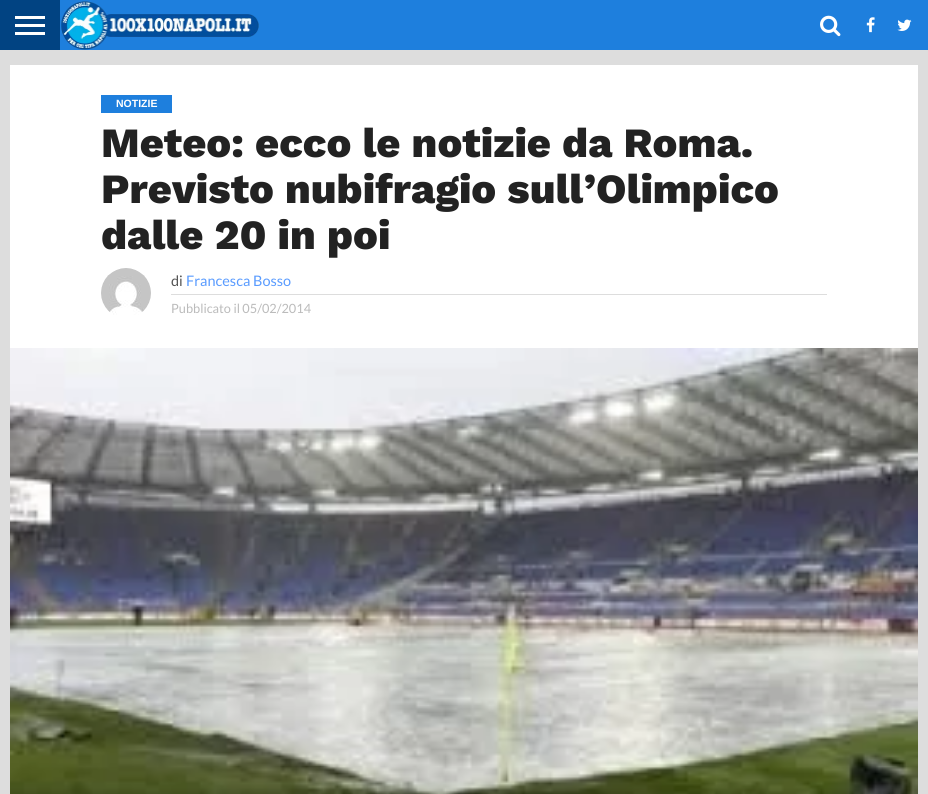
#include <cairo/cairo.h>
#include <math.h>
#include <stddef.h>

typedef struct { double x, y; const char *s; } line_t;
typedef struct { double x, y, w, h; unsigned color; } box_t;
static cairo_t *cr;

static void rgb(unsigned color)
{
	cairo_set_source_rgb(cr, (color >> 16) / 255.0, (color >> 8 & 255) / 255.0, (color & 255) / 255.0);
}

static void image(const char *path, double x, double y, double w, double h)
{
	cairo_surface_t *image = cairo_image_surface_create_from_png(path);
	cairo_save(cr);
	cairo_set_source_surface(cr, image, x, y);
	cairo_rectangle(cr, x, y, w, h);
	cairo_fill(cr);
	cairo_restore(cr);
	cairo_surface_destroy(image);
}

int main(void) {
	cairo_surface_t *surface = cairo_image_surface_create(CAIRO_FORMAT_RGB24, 928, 794);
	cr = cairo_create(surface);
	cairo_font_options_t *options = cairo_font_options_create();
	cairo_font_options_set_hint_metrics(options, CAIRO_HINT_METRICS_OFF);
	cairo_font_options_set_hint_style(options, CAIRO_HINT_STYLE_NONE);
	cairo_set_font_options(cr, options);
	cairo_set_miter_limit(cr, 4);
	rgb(0xdddddd);
	cairo_paint(cr);
	{
		static const box_t items[] = {
			{60, 0, 868, 50, 0x1e7fdd},
			{0, 0, 60, 50, 0x014382},
			{15, 16, 30, 3, 0xffffff},
			{15, 24, 30, 3, 0xffffff},
			{15, 32, 30, 3, 0xffffff},
		};
		for (size_t i = 0; i < sizeof items / sizeof *items; i++) {
			rgb(items[i].color);
			cairo_rectangle(cr, items[i].x, items[i].y, items[i].w, items[i].h);
			cairo_fill(cr);
		}
	}
	image("img/1.png", 61, 1, 198, 49);
	image("img/2.png", 820, 15, 21, 22);
	image("img/3.png", 866, 17, 9, 16);
	image("img/4.png", 897, 19, 15, 12);
	cairo_rectangle(cr, 10, 65, 908, 283);
	cairo_fill(cr);
	rgb(0x1e7fdd);
	cairo_rectangle(cr, 101, 95, 71, 18);
	cairo_fill(cr);
	image("img/5.png", 101, 268, 50, 47);
	rgb(0xdddddd);
	cairo_rectangle(cr, 171, 294, 656, 1);
	cairo_fill(cr);
	image("img/6.png", 10, 348, 908, 446);
	cairo_select_font_face(cr, "Liberation Sans", CAIRO_FONT_SLANT_NORMAL, CAIRO_FONT_WEIGHT_BOLD);
	cairo_set_font_size(cr, 10.5);
	rgb(0xffffff);
	cairo_move_to(cr, 116, 107);
	cairo_show_text(cr, "NOTIZIE");
	cairo_select_font_face(cr, "Work Sans ExtraBold", CAIRO_FONT_SLANT_NORMAL, CAIRO_FONT_WEIGHT_NORMAL);
	cairo_set_font_size(cr, 41.6);
	rgb(0x222222);
	{
		static const line_t items[] = {
			{101, 157, "Meteo: ecco le notizie da Roma."},
			{101, 203, "Previsto nubifragio sull’Olimpico"},
			{101, 249, "dalle 20 in poi"},
		};
		for (size_t i = 0; i < sizeof items / sizeof *items; i++) {
			cairo_move_to(cr, items[i].x, items[i].y);
			cairo_show_text(cr, items[i].s);
		}
	}
	cairo_select_font_face(cr, "Lato", CAIRO_FONT_SLANT_NORMAL, CAIRO_FONT_WEIGHT_NORMAL);
	cairo_set_font_size(cr, 14.5);
	rgb(0x555555);
	cairo_move_to(cr, 171, 286);
	cairo_show_text(cr, "di");
	rgb(0x599bff);
	cairo_move_to(cr, 186, 286);
	cairo_show_text(cr, "Francesca Bosso");
	cairo_set_font_size(cr, 12.75);
	rgb(0xbbbbbb);
	cairo_move_to(cr, 171, 313);
	cairo_show_text(cr, "Pubblicato il 05/02/2014");
	cairo_surface_write_to_png(surface, "page.png");
	cairo_font_options_destroy(options);
	cairo_destroy(cr);
	cairo_surface_destroy(surface);
	return 0;
}
